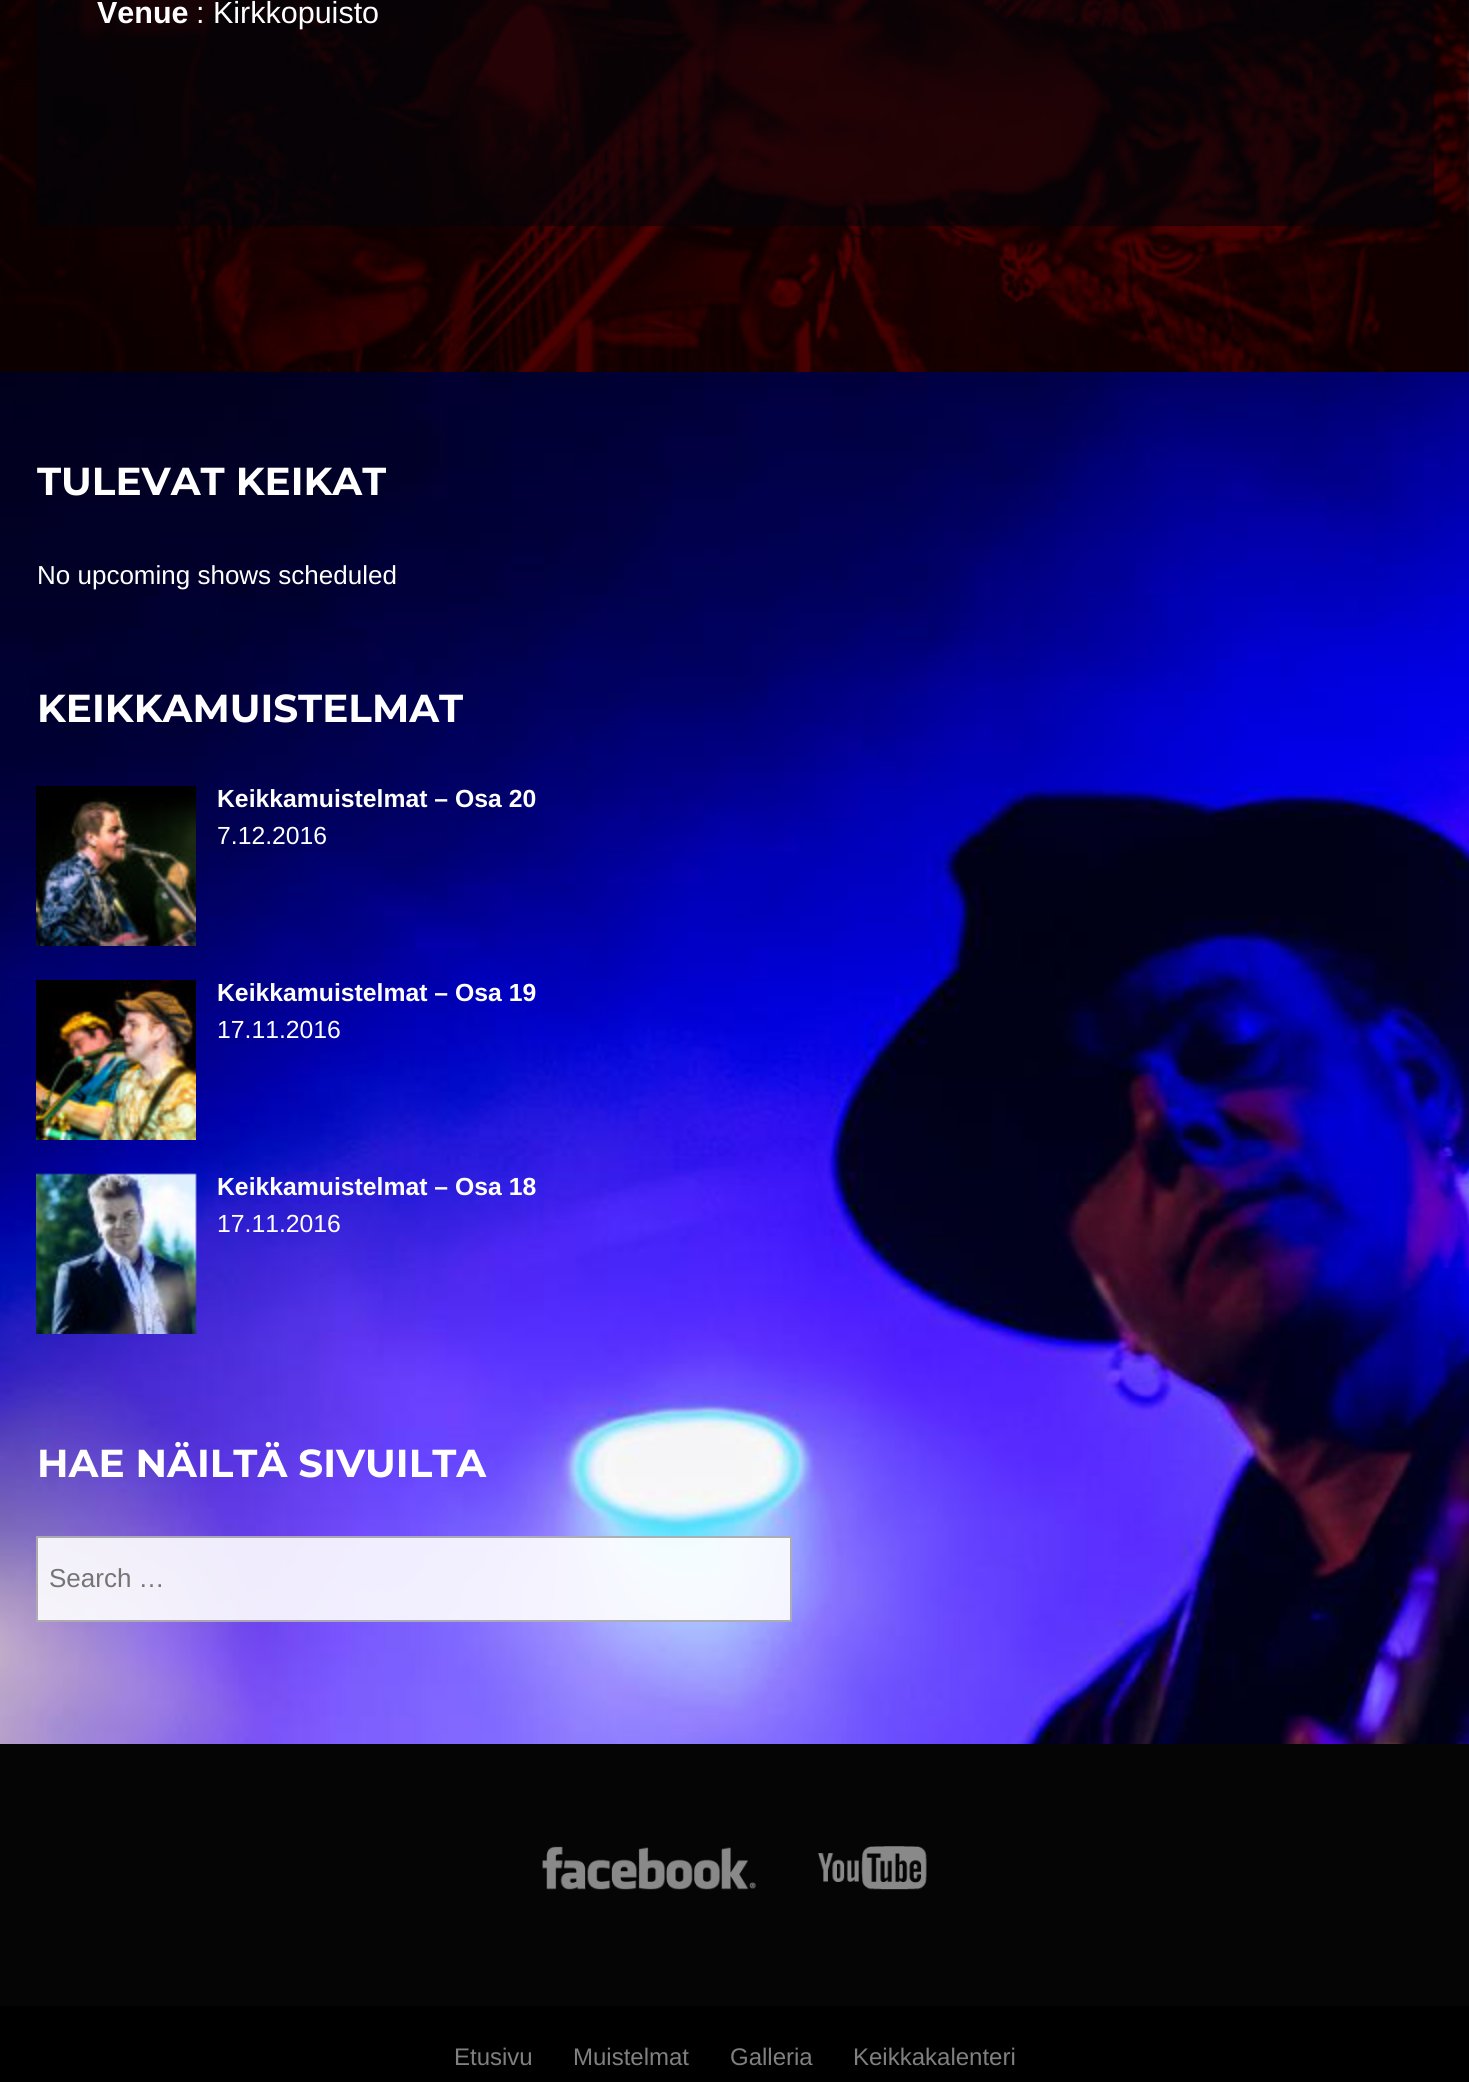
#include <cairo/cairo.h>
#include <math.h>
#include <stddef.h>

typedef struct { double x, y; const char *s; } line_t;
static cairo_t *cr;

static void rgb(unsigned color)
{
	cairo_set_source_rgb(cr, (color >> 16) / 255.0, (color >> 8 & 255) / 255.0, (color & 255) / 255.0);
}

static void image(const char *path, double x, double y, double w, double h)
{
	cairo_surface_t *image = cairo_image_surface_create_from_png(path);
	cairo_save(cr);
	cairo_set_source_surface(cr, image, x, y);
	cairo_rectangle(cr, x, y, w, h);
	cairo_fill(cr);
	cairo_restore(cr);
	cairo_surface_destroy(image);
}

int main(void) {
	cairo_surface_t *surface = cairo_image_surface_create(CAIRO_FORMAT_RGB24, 1469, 2082);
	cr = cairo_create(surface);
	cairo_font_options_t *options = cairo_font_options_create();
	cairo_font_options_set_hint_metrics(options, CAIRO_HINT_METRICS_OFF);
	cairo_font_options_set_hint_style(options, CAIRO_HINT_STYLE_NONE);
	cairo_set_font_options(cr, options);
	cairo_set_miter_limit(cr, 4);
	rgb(0x000000);
	cairo_paint(cr);
	image("img/1.png", 0, 0, 1469, 372);
	cairo_set_source_rgba(cr, 0, 0.02, 0.039, 0.55);
	cairo_rectangle(cr, 36, 0, 1398, 226);
	cairo_fill(cr);
	image("img/2.png", 0, 372, 1469, 1372);
	image("img/3.png", 36, 786, 160, 160);
	image("img/4.png", 36, 980, 160, 160);
	image("img/5.png", 36, 1173, 161, 161);
	cairo_set_source_rgba(cr, 1, 1, 1, 0.9);
	cairo_rectangle(cr, 36, 1536, 756, 86);
	cairo_fill(cr);
	cairo_rectangle(cr, 37, 1537, 754, 84);
	cairo_set_source_rgba(cr, 0, 0, 0, 0.3);
	cairo_stroke(cr);
	rgb(0x050505);
	cairo_rectangle(cr, 0, 1744, 1469, 262);
	cairo_fill(cr);
	image("img/6.png", 542, 1846, 214, 44);
	image("img/7.png", 818, 1846, 109, 44);
	cairo_select_font_face(cr, "Liberation Sans", CAIRO_FONT_SLANT_NORMAL, CAIRO_FONT_WEIGHT_BOLD);
	cairo_set_font_size(cr, 30.5);
	rgb(0xffffff);
	cairo_move_to(cr, 97, 23);
	cairo_show_text(cr, "Venue");
	cairo_select_font_face(cr, "Liberation Sans", CAIRO_FONT_SLANT_NORMAL, CAIRO_FONT_WEIGHT_NORMAL);
	cairo_move_to(cr, 196, 23);
	cairo_show_text(cr, ": Kirkkopuisto");
	cairo_select_font_face(cr, "Montserrat", CAIRO_FONT_SLANT_NORMAL, CAIRO_FONT_WEIGHT_BOLD);
	cairo_set_font_size(cr, 39);
	cairo_move_to(cr, 37, 495);
	cairo_show_text(cr, "TULEVAT KEIKAT");
	cairo_select_font_face(cr, "Liberation Sans", CAIRO_FONT_SLANT_NORMAL, CAIRO_FONT_WEIGHT_NORMAL);
	cairo_set_font_size(cr, 26);
	cairo_move_to(cr, 37, 584);
	cairo_show_text(cr, "No upcoming shows scheduled");
	cairo_select_font_face(cr, "Montserrat", CAIRO_FONT_SLANT_NORMAL, CAIRO_FONT_WEIGHT_BOLD);
	cairo_set_font_size(cr, 39);
	cairo_move_to(cr, 37, 722);
	cairo_show_text(cr, "KEIKKAMUISTELMAT");
	cairo_select_font_face(cr, "Liberation Sans", CAIRO_FONT_SLANT_NORMAL, CAIRO_FONT_WEIGHT_BOLD);
	cairo_set_font_size(cr, 24.75);
	cairo_move_to(cr, 217, 807);
	cairo_show_text(cr, "Keikkamuistelmat – Osa 20");
	cairo_select_font_face(cr, "Liberation Sans", CAIRO_FONT_SLANT_NORMAL, CAIRO_FONT_WEIGHT_NORMAL);
	cairo_move_to(cr, 217, 844);
	cairo_show_text(cr, "7.12.2016");
	cairo_select_font_face(cr, "Liberation Sans", CAIRO_FONT_SLANT_NORMAL, CAIRO_FONT_WEIGHT_BOLD);
	cairo_move_to(cr, 217, 1001);
	cairo_show_text(cr, "Keikkamuistelmat – Osa 19");
	cairo_select_font_face(cr, "Liberation Sans", CAIRO_FONT_SLANT_NORMAL, CAIRO_FONT_WEIGHT_NORMAL);
	cairo_move_to(cr, 217, 1038);
	cairo_show_text(cr, "17.11.2016");
	cairo_select_font_face(cr, "Liberation Sans", CAIRO_FONT_SLANT_NORMAL, CAIRO_FONT_WEIGHT_BOLD);
	cairo_move_to(cr, 217, 1195);
	cairo_show_text(cr, "Keikkamuistelmat – Osa 18");
	cairo_select_font_face(cr, "Liberation Sans", CAIRO_FONT_SLANT_NORMAL, CAIRO_FONT_WEIGHT_NORMAL);
	cairo_move_to(cr, 217, 1232);
	cairo_show_text(cr, "17.11.2016");
	cairo_select_font_face(cr, "Montserrat", CAIRO_FONT_SLANT_NORMAL, CAIRO_FONT_WEIGHT_BOLD);
	cairo_set_font_size(cr, 39);
	cairo_move_to(cr, 37, 1477);
	cairo_show_text(cr, "HAE NÄILTÄ SIVUILTA");
	cairo_select_font_face(cr, "Liberation Sans", CAIRO_FONT_SLANT_NORMAL, CAIRO_FONT_WEIGHT_NORMAL);
	cairo_set_font_size(cr, 26);
	rgb(0x757575);
	cairo_move_to(cr, 49, 1587);
	cairo_show_text(cr, "Search …");
	cairo_set_font_size(cr, 24);
	rgb(0x808080);
	{
		static const line_t items[] = {
			{454, 2065, "Etusivu"},
			{573, 2065, "Muistelmat"},
			{730, 2065, "Galleria"},
			{853, 2065, "Keikkakalenteri"},
		};
		for (size_t i = 0; i < sizeof items / sizeof *items; i++) {
			cairo_move_to(cr, items[i].x, items[i].y);
			cairo_show_text(cr, items[i].s);
		}
	}
	cairo_surface_write_to_png(surface, "page.png");
	cairo_font_options_destroy(options);
	cairo_destroy(cr);
	cairo_surface_destroy(surface);
	return 0;
}
